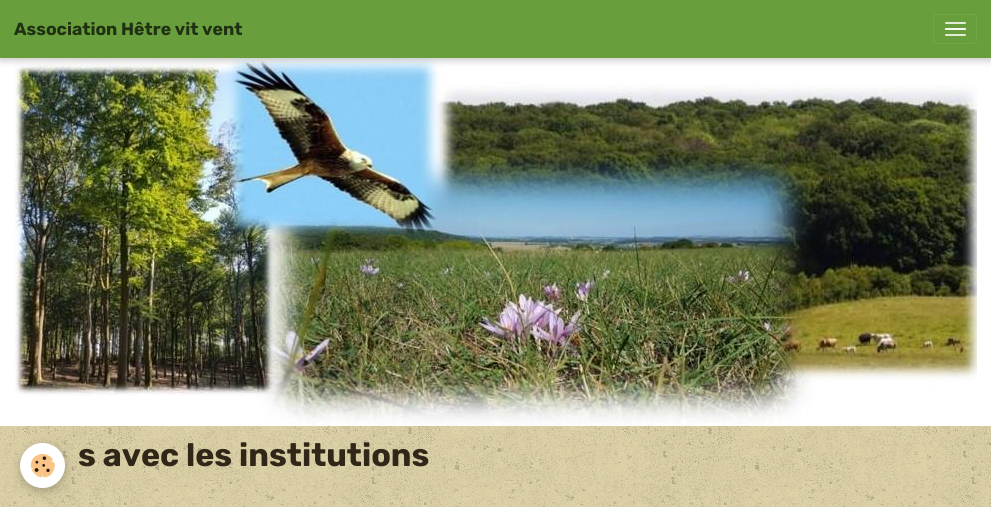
#include <cairo/cairo.h>
#include <math.h>
#include <stddef.h>

static cairo_t *cr;

static void rgb(unsigned color)
{
	cairo_set_source_rgb(cr, (color >> 16) / 255.0, (color >> 8 & 255) / 255.0, (color & 255) / 255.0);
}

static void rrect(double x, double y, double w, double h, double r)
{
	cairo_new_sub_path(cr);
	cairo_arc(cr, x + w - r, y + h - r, r, 0, M_PI / 2);
	cairo_arc(cr, x + r, y + h - r, r, M_PI / 2, M_PI);
	cairo_arc(cr, x + r, y + r, r, M_PI, 1.5 * M_PI);
	cairo_arc(cr, x + w - r, y + r, r, 1.5 * M_PI, 2 * M_PI);
	cairo_close_path(cr);
}

static void soft_shadow(double x, double y, double w, double h, double r, double blur, double alpha)
{
	cairo_push_group_with_content(cr, CAIRO_CONTENT_ALPHA);
	cairo_set_operator(cr, CAIRO_OPERATOR_SOURCE);
	for (int i = 15; i >= -15 && fmin(w, h) + blur * i / 3 > 0; i -= 2) {
		double e = blur * i / 6;
		cairo_set_source_rgba(cr, 0, 0, 0, alpha * erfc((i - 1) / 8.5) / 2);
		rrect(x - e, y - e, w + 2 * e, h + 2 * e, fmax(0, fmin(r + e + blur * .6, fmin(w, h) / 2 + e)));
		cairo_fill(cr);
	}
	cairo_pattern_t *soft = cairo_pop_group(cr);
	cairo_mask(cr, soft);
	cairo_pattern_destroy(soft);
}

static void image(const char *path, double x, double y, double w, double h)
{
	cairo_surface_t *image = cairo_image_surface_create_from_png(path);
	cairo_save(cr);
	cairo_set_source_surface(cr, image, x, y);
	cairo_rectangle(cr, x, y, w, h);
	cairo_fill(cr);
	cairo_restore(cr);
	cairo_surface_destroy(image);
}

int main(void) {
	cairo_surface_t *surface = cairo_image_surface_create(CAIRO_FORMAT_RGB24, 991, 507);
	cr = cairo_create(surface);
	cairo_font_options_t *options = cairo_font_options_create();
	cairo_font_options_set_hint_metrics(options, CAIRO_HINT_METRICS_OFF);
	cairo_font_options_set_hint_style(options, CAIRO_HINT_STYLE_NONE);
	cairo_set_font_options(cr, options);
	cairo_set_miter_limit(cr, 4);
	rgb(0xded2a8);
	cairo_paint(cr);
	image("img/1.png", 0, 426, 991, 81);
	rgb(0xffffff);
	cairo_rectangle(cr, 0, 58, 991, 368);
	cairo_fill(cr);
	image("img/2.png", 14, 58, 963, 368);
	rgb(0x000000);
	soft_shadow(0, 3, 991, 58, 0, 3.5, 0.2);
	rgb(0x699e3c);
	cairo_rectangle(cr, 0, 0, 991, 58);
	cairo_fill(cr);
	rrect(933.5, 14.5, 43, 29, 3.5);
	rgb(0x75a64c);
	cairo_set_line_width(cr, 1);
	cairo_stroke(cr);
	rgb(0xe1ecd8);
	rrect(945, 22, 21, 2, 1);
	cairo_fill(cr);
	rrect(945, 28, 21, 2, 1);
	cairo_fill(cr);
	cairo_set_source_rgba(cr, 1, 1, 1, 0.8);
	rrect(945, 28, 21, 2, 1);
	cairo_fill(cr);
	rgb(0xe1ecd8);
	rrect(945, 34, 21, 2, 1);
	cairo_fill(cr);
	rgb(0x000000);
	soft_shadow(20, 446, 45, 45, 22.5, 5, 0.24);
	rgb(0xffffff);
	cairo_arc(cr, 42.5, 465.5, 22.5, 0, 2 * M_PI);
	cairo_fill(cr);
	image("img/3.png", 30, 453, 25, 25);
	cairo_select_font_face(cr, "Rubik", CAIRO_FONT_SLANT_NORMAL, CAIRO_FONT_WEIGHT_BOLD);
	cairo_set_font_size(cr, 17.5);
	rgb(0x203012);
	cairo_move_to(cr, 14, 35);
	cairo_show_text(cr, "Association Hêtre vit vent");
	cairo_set_font_size(cr, 32.25);
	rgb(0x302718);
	cairo_move_to(cr, 78, 466);
	cairo_show_text(cr, "s avec les institutions");
	cairo_surface_write_to_png(surface, "page.png");
	cairo_font_options_destroy(options);
	cairo_destroy(cr);
	cairo_surface_destroy(surface);
	return 0;
}
